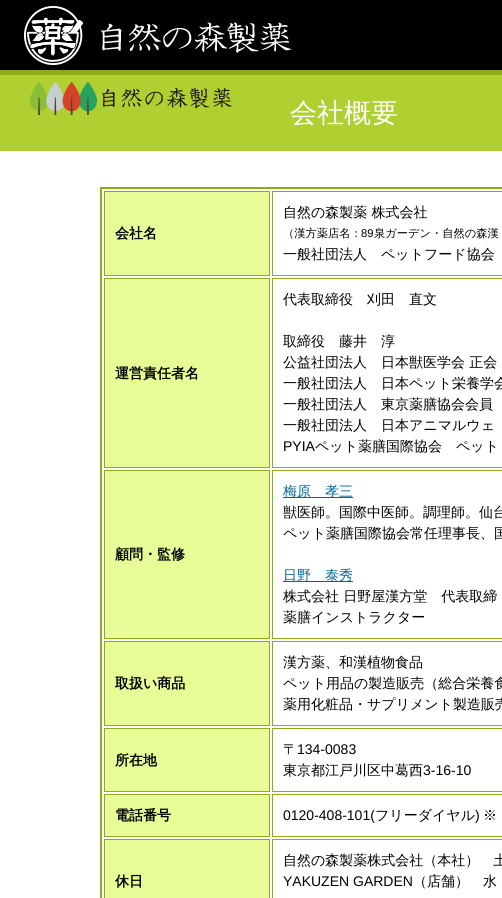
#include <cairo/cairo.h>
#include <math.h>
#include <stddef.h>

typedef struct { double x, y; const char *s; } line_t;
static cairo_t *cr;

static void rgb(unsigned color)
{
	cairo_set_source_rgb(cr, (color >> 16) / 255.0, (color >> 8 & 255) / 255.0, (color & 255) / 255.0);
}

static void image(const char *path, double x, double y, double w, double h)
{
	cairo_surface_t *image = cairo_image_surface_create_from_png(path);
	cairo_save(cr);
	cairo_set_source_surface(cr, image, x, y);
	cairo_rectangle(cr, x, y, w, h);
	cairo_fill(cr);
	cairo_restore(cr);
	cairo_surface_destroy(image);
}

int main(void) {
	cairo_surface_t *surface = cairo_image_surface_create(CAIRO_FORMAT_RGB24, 502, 898);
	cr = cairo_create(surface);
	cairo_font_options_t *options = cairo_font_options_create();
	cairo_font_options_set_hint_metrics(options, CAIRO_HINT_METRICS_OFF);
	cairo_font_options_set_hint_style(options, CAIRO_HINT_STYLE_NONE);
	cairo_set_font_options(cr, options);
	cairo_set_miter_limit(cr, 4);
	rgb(0xffffff);
	cairo_paint(cr);
	rgb(0x000000);
	cairo_rectangle(cr, 0, 0, 502, 70);
	cairo_fill(cr);
	image("img/1.png", 24, 6, 268, 59);
	rgb(0xafd030);
	cairo_rectangle(cr, 0, 75, 502, 76);
	cairo_fill(cr);
	rgb(0x8eab1c);
	cairo_rectangle(cr, 0, 70, 502, 5);
	cairo_fill(cr);
	image("img/2.png", 30, 82, 202, 33);
	cairo_rectangle(cr, 101, 188, 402, 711);
	cairo_stroke(cr);
	rgb(0xe7fc97);
	cairo_rectangle(cr, 104.5, 191.5, 165, 84);
	cairo_fill_preserve(cr);
	rgb(0x8eab1c);
	cairo_set_line_width(cr, 1);
	cairo_stroke(cr);
	cairo_rectangle(cr, 272.5, 191.5, 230, 84);
	cairo_stroke(cr);
	rgb(0xe7fc97);
	cairo_rectangle(cr, 104.5, 278.5, 165, 189);
	cairo_fill_preserve(cr);
	rgb(0x8eab1c);
	cairo_stroke(cr);
	cairo_rectangle(cr, 272.5, 278.5, 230, 189);
	cairo_stroke(cr);
	rgb(0xe7fc97);
	cairo_rectangle(cr, 104.5, 470.5, 165, 168);
	cairo_fill_preserve(cr);
	rgb(0x8eab1c);
	cairo_stroke(cr);
	cairo_rectangle(cr, 272.5, 470.5, 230, 168);
	cairo_stroke(cr);
	rgb(0x006699);
	cairo_rectangle(cr, 283, 497, 70, 1);
	cairo_fill(cr);
	cairo_rectangle(cr, 283, 581, 70, 1);
	cairo_fill(cr);
	rgb(0xe7fc97);
	cairo_rectangle(cr, 104.5, 641.5, 165, 84);
	cairo_fill_preserve(cr);
	rgb(0x8eab1c);
	cairo_stroke(cr);
	cairo_rectangle(cr, 272.5, 641.5, 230, 84);
	cairo_stroke(cr);
	rgb(0xe7fc97);
	cairo_rectangle(cr, 104.5, 728.5, 165, 63);
	cairo_fill_preserve(cr);
	rgb(0x8eab1c);
	cairo_stroke(cr);
	cairo_rectangle(cr, 272.5, 728.5, 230, 63);
	cairo_stroke(cr);
	rgb(0xe7fc97);
	cairo_rectangle(cr, 104.5, 794.5, 165, 42);
	cairo_fill_preserve(cr);
	rgb(0x8eab1c);
	cairo_stroke(cr);
	cairo_rectangle(cr, 272.5, 794.5, 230, 42);
	cairo_stroke(cr);
	rgb(0xe7fc97);
	cairo_rectangle(cr, 104.5, 839.5, 165, 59);
	cairo_fill_preserve(cr);
	rgb(0x8eab1c);
	cairo_stroke(cr);
	cairo_rectangle(cr, 272.5, 839.5, 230, 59);
	cairo_stroke(cr);
	cairo_select_font_face(cr, "WenQuanYi Zen Hei Medium", CAIRO_FONT_SLANT_NORMAL, CAIRO_FONT_WEIGHT_NORMAL);
	cairo_set_font_size(cr, 27);
	rgb(0xffffff);
	cairo_move_to(cr, 290, 122);
	cairo_show_text(cr, "会社概要");
	cairo_select_font_face(cr, "WenQuanYi Zen Hei", CAIRO_FONT_SLANT_NORMAL, CAIRO_FONT_WEIGHT_BOLD);
	cairo_set_font_size(cr, 14);
	rgb(0x000000);
	cairo_move_to(cr, 115, 238);
	cairo_show_text(cr, "会社名");
	cairo_select_font_face(cr, "WenQuanYi Zen Hei Medium", CAIRO_FONT_SLANT_NORMAL, CAIRO_FONT_WEIGHT_NORMAL);
	cairo_move_to(cr, 283, 217);
	cairo_show_text(cr, "自然の森製薬 株式会社");
	cairo_set_font_size(cr, 11.25);
	cairo_move_to(cr, 283, 237);
	cairo_show_text(cr, "（漢方薬店名：");
	cairo_select_font_face(cr, "Liberation Sans", CAIRO_FONT_SLANT_NORMAL, CAIRO_FONT_WEIGHT_NORMAL);
	cairo_move_to(cr, 361, 237);
	cairo_show_text(cr, "89");
	cairo_select_font_face(cr, "WenQuanYi Zen Hei Medium", CAIRO_FONT_SLANT_NORMAL, CAIRO_FONT_WEIGHT_NORMAL);
	cairo_move_to(cr, 374, 237);
	cairo_show_text(cr, "泉ガーデン・自然の森漢");
	cairo_set_font_size(cr, 14);
	cairo_move_to(cr, 283, 259);
	cairo_show_text(cr, "一般社団法人　ペットフード協会");
	cairo_select_font_face(cr, "WenQuanYi Zen Hei", CAIRO_FONT_SLANT_NORMAL, CAIRO_FONT_WEIGHT_BOLD);
	cairo_move_to(cr, 115, 378);
	cairo_show_text(cr, "運営責任者名");
	cairo_select_font_face(cr, "WenQuanYi Zen Hei Medium", CAIRO_FONT_SLANT_NORMAL, CAIRO_FONT_WEIGHT_NORMAL);
	{
		static const line_t items[] = {
			{283, 304, "代表取締役　刈田　直文"},
			{283, 346, "取締役　藤井　淳"},
			{283, 367, "公益社団法人　日本獣医学会 正会"},
			{283, 388, "一般社団法人　日本ペット栄養学会"},
			{283, 409, "一般社団法人　東京薬膳協会会員"},
			{283, 430, "一般社団法人　日本アニマルウェ"},
		};
		for (size_t i = 0; i < sizeof items / sizeof *items; i++) {
			cairo_move_to(cr, items[i].x, items[i].y);
			cairo_show_text(cr, items[i].s);
		}
	}
	cairo_select_font_face(cr, "Liberation Sans", CAIRO_FONT_SLANT_NORMAL, CAIRO_FONT_WEIGHT_NORMAL);
	cairo_move_to(cr, 283, 451);
	cairo_show_text(cr, "PYIA");
	cairo_select_font_face(cr, "WenQuanYi Zen Hei Medium", CAIRO_FONT_SLANT_NORMAL, CAIRO_FONT_WEIGHT_NORMAL);
	cairo_move_to(cr, 315, 451);
	cairo_show_text(cr, "ペット薬膳国際協会　ペット");
	cairo_select_font_face(cr, "WenQuanYi Zen Hei", CAIRO_FONT_SLANT_NORMAL, CAIRO_FONT_WEIGHT_BOLD);
	cairo_move_to(cr, 115, 559);
	cairo_show_text(cr, "顧問・監修");
	cairo_select_font_face(cr, "WenQuanYi Zen Hei Medium", CAIRO_FONT_SLANT_NORMAL, CAIRO_FONT_WEIGHT_NORMAL);
	rgb(0x006699);
	cairo_move_to(cr, 283, 496);
	cairo_show_text(cr, "梅原　孝三");
	rgb(0x000000);
	cairo_move_to(cr, 283, 517);
	cairo_show_text(cr, "獣医師。国際中医師。調理師。仙台");
	cairo_move_to(cr, 283, 538);
	cairo_show_text(cr, "ペット薬膳国際協会常任理事長、国");
	rgb(0x006699);
	cairo_move_to(cr, 283, 580);
	cairo_show_text(cr, "日野　泰秀");
	rgb(0x000000);
	cairo_move_to(cr, 283, 601);
	cairo_show_text(cr, "株式会社 日野屋漢方堂　代表取締");
	cairo_move_to(cr, 283, 622);
	cairo_show_text(cr, "薬膳インストラクター");
	cairo_select_font_face(cr, "WenQuanYi Zen Hei", CAIRO_FONT_SLANT_NORMAL, CAIRO_FONT_WEIGHT_BOLD);
	cairo_move_to(cr, 115, 688);
	cairo_show_text(cr, "取扱い商品");
	cairo_select_font_face(cr, "WenQuanYi Zen Hei Medium", CAIRO_FONT_SLANT_NORMAL, CAIRO_FONT_WEIGHT_NORMAL);
	{
		static const line_t items[] = {
			{283, 667, "漢方薬、和漢植物食品"},
			{283, 688, "ペット用品の製造販売（総合栄養食"},
			{283, 709, "薬用化粧品・サプリメント製造販売"},
		};
		for (size_t i = 0; i < sizeof items / sizeof *items; i++) {
			cairo_move_to(cr, items[i].x, items[i].y);
			cairo_show_text(cr, items[i].s);
		}
	}
	cairo_select_font_face(cr, "WenQuanYi Zen Hei", CAIRO_FONT_SLANT_NORMAL, CAIRO_FONT_WEIGHT_BOLD);
	cairo_move_to(cr, 115, 765);
	cairo_show_text(cr, "所在地");
	cairo_select_font_face(cr, "WenQuanYi Zen Hei Medium", CAIRO_FONT_SLANT_NORMAL, CAIRO_FONT_WEIGHT_NORMAL);
	cairo_move_to(cr, 283, 754);
	cairo_show_text(cr, "〒");
	cairo_select_font_face(cr, "Liberation Sans", CAIRO_FONT_SLANT_NORMAL, CAIRO_FONT_WEIGHT_NORMAL);
	cairo_move_to(cr, 297, 754);
	cairo_show_text(cr, "134-0083");
	cairo_select_font_face(cr, "WenQuanYi Zen Hei Medium", CAIRO_FONT_SLANT_NORMAL, CAIRO_FONT_WEIGHT_NORMAL);
	cairo_move_to(cr, 283, 775);
	cairo_show_text(cr, "東京都江戸川区中葛西");
	cairo_select_font_face(cr, "Liberation Sans", CAIRO_FONT_SLANT_NORMAL, CAIRO_FONT_WEIGHT_NORMAL);
	cairo_move_to(cr, 423, 775);
	cairo_show_text(cr, "3-16-10");
	cairo_select_font_face(cr, "WenQuanYi Zen Hei", CAIRO_FONT_SLANT_NORMAL, CAIRO_FONT_WEIGHT_BOLD);
	cairo_move_to(cr, 115, 820);
	cairo_show_text(cr, "電話番号");
	cairo_select_font_face(cr, "Liberation Sans", CAIRO_FONT_SLANT_NORMAL, CAIRO_FONT_WEIGHT_NORMAL);
	cairo_move_to(cr, 283, 820);
	cairo_show_text(cr, "0120-408-101(");
	cairo_select_font_face(cr, "WenQuanYi Zen Hei Medium", CAIRO_FONT_SLANT_NORMAL, CAIRO_FONT_WEIGHT_NORMAL);
	cairo_move_to(cr, 375, 820);
	cairo_show_text(cr, "フリーダイヤル");
	cairo_select_font_face(cr, "Liberation Sans", CAIRO_FONT_SLANT_NORMAL, CAIRO_FONT_WEIGHT_NORMAL);
	cairo_move_to(cr, 475, 820);
	cairo_show_text(cr, ")");
	cairo_select_font_face(cr, "WenQuanYi Zen Hei Medium", CAIRO_FONT_SLANT_NORMAL, CAIRO_FONT_WEIGHT_NORMAL);
	cairo_move_to(cr, 483, 820);
	cairo_show_text(cr, "※");
	cairo_select_font_face(cr, "WenQuanYi Zen Hei", CAIRO_FONT_SLANT_NORMAL, CAIRO_FONT_WEIGHT_BOLD);
	cairo_move_to(cr, 115, 886);
	cairo_show_text(cr, "休日");
	cairo_select_font_face(cr, "WenQuanYi Zen Hei Medium", CAIRO_FONT_SLANT_NORMAL, CAIRO_FONT_WEIGHT_NORMAL);
	cairo_move_to(cr, 283, 865);
	cairo_show_text(cr, "自然の森製薬株式会社（本社）　土");
	cairo_select_font_face(cr, "Liberation Sans", CAIRO_FONT_SLANT_NORMAL, CAIRO_FONT_WEIGHT_NORMAL);
	cairo_move_to(cr, 283, 886);
	cairo_show_text(cr, "YAKUZEN GARDEN");
	cairo_select_font_face(cr, "WenQuanYi Zen Hei Medium", CAIRO_FONT_SLANT_NORMAL, CAIRO_FONT_WEIGHT_NORMAL);
	cairo_move_to(cr, 413, 886);
	cairo_show_text(cr, "（店舗）　水");
	cairo_surface_write_to_png(surface, "page.png");
	cairo_font_options_destroy(options);
	cairo_destroy(cr);
	cairo_surface_destroy(surface);
	return 0;
}
